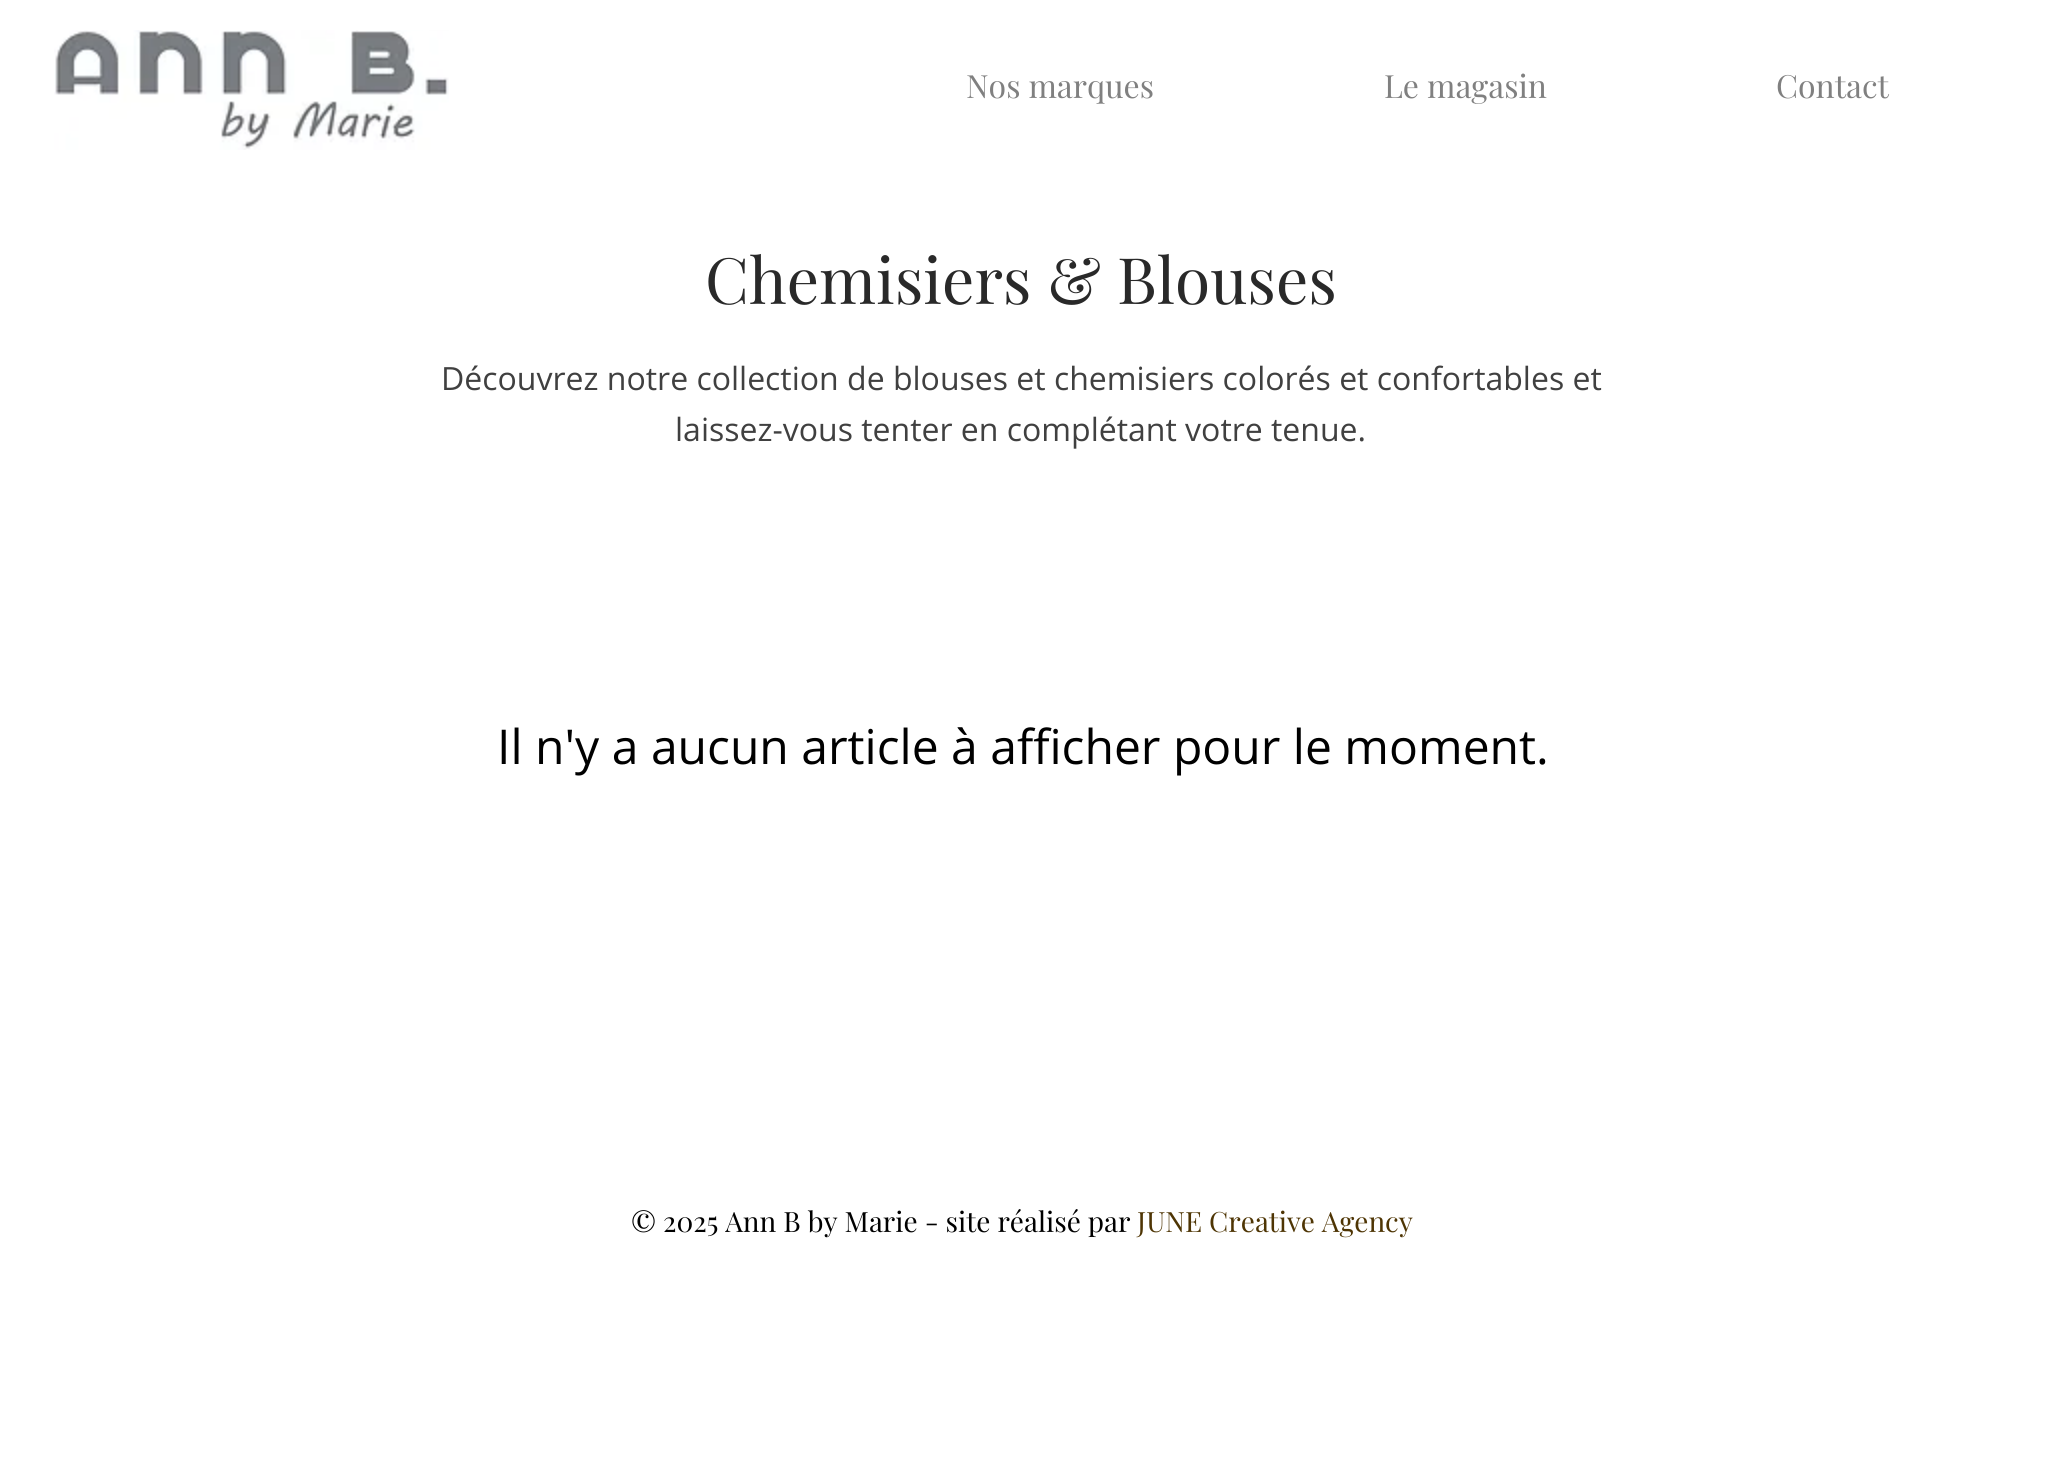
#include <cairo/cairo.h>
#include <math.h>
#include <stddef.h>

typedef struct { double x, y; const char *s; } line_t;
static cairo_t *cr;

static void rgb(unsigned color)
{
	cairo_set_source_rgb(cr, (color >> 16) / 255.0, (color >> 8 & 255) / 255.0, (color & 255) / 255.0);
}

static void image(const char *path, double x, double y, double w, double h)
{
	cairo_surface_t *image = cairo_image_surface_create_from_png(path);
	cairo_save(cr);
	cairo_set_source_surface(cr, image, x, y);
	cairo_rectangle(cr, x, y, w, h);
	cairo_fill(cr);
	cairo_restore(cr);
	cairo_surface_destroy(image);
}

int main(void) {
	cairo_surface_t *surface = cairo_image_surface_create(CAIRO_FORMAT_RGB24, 2046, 1458);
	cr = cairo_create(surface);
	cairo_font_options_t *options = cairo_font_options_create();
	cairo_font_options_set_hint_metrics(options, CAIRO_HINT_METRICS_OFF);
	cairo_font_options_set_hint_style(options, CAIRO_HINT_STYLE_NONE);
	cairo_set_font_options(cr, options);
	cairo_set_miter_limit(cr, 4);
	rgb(0xffffff);
	cairo_paint(cr);
	image("img/1.png", 54, 30, 395, 120);
	cairo_select_font_face(cr, "Playfair Display", CAIRO_FONT_SLANT_NORMAL, CAIRO_FONT_WEIGHT_NORMAL);
	cairo_set_font_size(cr, 32);
	rgb(0x808080);
	{
		static const line_t items[] = {
			{966, 98, "Nos marques"},
			{1384, 98, "Le magasin"},
			{1776, 98, "Contact"},
		};
		for (size_t i = 0; i < sizeof items / sizeof *items; i++) {
			cairo_move_to(cr, items[i].x, items[i].y);
			cairo_show_text(cr, items[i].s);
		}
	}
	cairo_set_font_size(cr, 64);
	rgb(0x292929);
	cairo_move_to(cr, 705, 304);
	cairo_show_text(cr, "Chemisiers & Blouses");
	cairo_select_font_face(cr, "Open Sans", CAIRO_FONT_SLANT_NORMAL, CAIRO_FONT_WEIGHT_NORMAL);
	cairo_set_font_size(cr, 32);
	rgb(0x404040);
	cairo_move_to(cr, 441, 390);
	cairo_show_text(cr, "Découvrez notre collection de blouses et chemisiers colorés et confortables et");
	cairo_move_to(cr, 675, 441);
	cairo_show_text(cr, "laissez-vous tenter en complétant votre tenue.");
	cairo_set_font_size(cr, 48);
	rgb(0x000000);
	cairo_move_to(cr, 497, 764);
	cairo_show_text(cr, "Il n'y a aucun article à afficher pour le moment.");
	cairo_select_font_face(cr, "Playfair Display", CAIRO_FONT_SLANT_NORMAL, CAIRO_FONT_WEIGHT_NORMAL);
	cairo_set_font_size(cr, 28);
	cairo_move_to(cr, 631, 1232);
	cairo_show_text(cr, "© 2025 Ann B by Marie - site réalisé par");
	rgb(0x4e3504);
	cairo_move_to(cr, 1137, 1232);
	cairo_show_text(cr, "JUNE Creative Agency");
	cairo_surface_write_to_png(surface, "page.png");
	cairo_font_options_destroy(options);
	cairo_destroy(cr);
	cairo_surface_destroy(surface);
	return 0;
}
